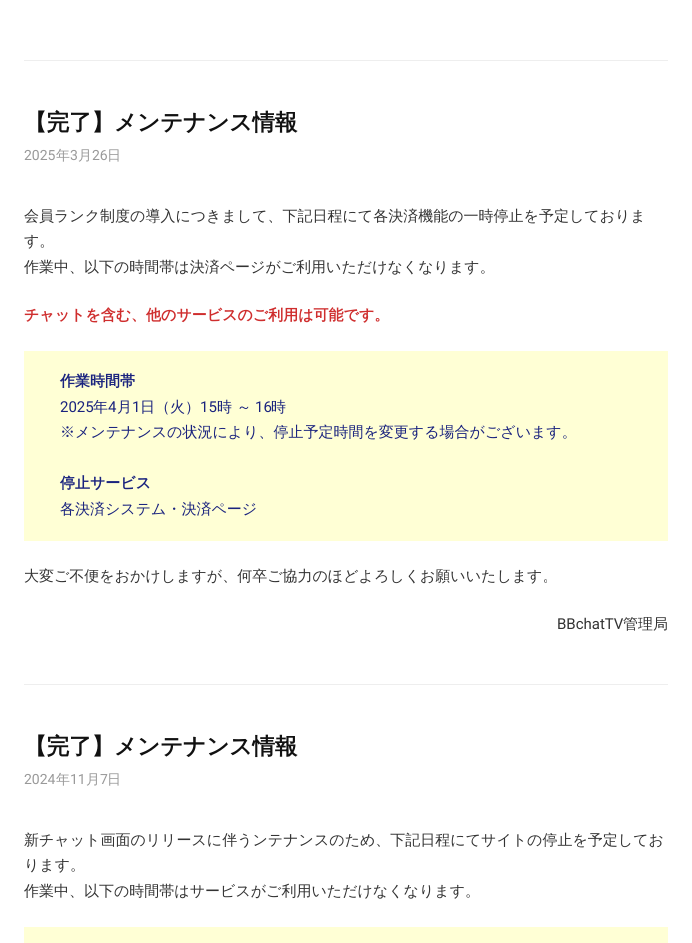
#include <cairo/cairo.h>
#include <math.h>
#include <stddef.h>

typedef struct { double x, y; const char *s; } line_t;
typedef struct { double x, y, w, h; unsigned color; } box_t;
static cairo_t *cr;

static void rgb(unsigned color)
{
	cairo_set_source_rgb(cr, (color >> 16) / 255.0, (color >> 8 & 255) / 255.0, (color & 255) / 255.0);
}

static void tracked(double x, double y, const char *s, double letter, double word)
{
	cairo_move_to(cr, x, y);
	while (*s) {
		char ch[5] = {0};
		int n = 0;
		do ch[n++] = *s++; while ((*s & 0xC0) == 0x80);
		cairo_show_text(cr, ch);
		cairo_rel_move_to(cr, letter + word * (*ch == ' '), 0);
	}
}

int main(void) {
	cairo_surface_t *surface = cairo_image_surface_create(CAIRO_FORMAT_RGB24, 692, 943);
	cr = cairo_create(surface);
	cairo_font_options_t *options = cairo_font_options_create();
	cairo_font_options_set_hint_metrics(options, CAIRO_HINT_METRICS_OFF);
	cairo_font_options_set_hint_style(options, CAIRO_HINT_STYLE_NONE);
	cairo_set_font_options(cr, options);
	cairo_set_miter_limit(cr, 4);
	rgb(0xffffff);
	cairo_paint(cr);
	{
		static const box_t items[] = {
			{24, 60, 644, 1, 0xeeeeee},
			{24, 684, 644, 1, 0xeeeeee},
			{24, 351, 644, 190, 0xffffd5},
			{24, 927, 644, 16, 0xffffd5},
		};
		for (size_t i = 0; i < sizeof items / sizeof *items; i++) {
			rgb(items[i].color);
			cairo_rectangle(cr, items[i].x, items[i].y, items[i].w, items[i].h);
			cairo_fill(cr);
		}
	}
	cairo_select_font_face(cr, "WenQuanYi Zen Hei", CAIRO_FONT_SLANT_NORMAL, CAIRO_FONT_WEIGHT_BOLD);
	cairo_set_font_size(cr, 22.75);
	rgb(0x111111);
	tracked(24, 130, "【完了】メンテナンス情報", -0.25, 0);
	cairo_select_font_face(cr, "Roboto", CAIRO_FONT_SLANT_NORMAL, CAIRO_FONT_WEIGHT_NORMAL);
	cairo_set_font_size(cr, 14);
	rgb(0x999999);
	cairo_move_to(cr, 24, 160);
	cairo_show_text(cr, "2025");
	cairo_select_font_face(cr, "WenQuanYi Zen Hei Medium", CAIRO_FONT_SLANT_NORMAL, CAIRO_FONT_WEIGHT_NORMAL);
	cairo_move_to(cr, 56, 160);
	cairo_show_text(cr, "年");
	cairo_select_font_face(cr, "Roboto", CAIRO_FONT_SLANT_NORMAL, CAIRO_FONT_WEIGHT_NORMAL);
	cairo_move_to(cr, 70, 160);
	cairo_show_text(cr, "3");
	cairo_select_font_face(cr, "WenQuanYi Zen Hei Medium", CAIRO_FONT_SLANT_NORMAL, CAIRO_FONT_WEIGHT_NORMAL);
	cairo_move_to(cr, 78, 160);
	cairo_show_text(cr, "月");
	cairo_select_font_face(cr, "Roboto", CAIRO_FONT_SLANT_NORMAL, CAIRO_FONT_WEIGHT_NORMAL);
	cairo_move_to(cr, 92, 160);
	cairo_show_text(cr, "26");
	cairo_select_font_face(cr, "WenQuanYi Zen Hei Medium", CAIRO_FONT_SLANT_NORMAL, CAIRO_FONT_WEIGHT_NORMAL);
	cairo_move_to(cr, 107, 160);
	cairo_show_text(cr, "日");
	cairo_set_font_size(cr, 15);
	rgb(0x333333);
	{
		static const line_t items[] = {
			{24, 221, "会員ランク制度の導入につきまして、下記日程にて各決済機能の一時停止を予定しておりま"},
			{24, 246, "す。"},
			{24, 272, "作業中、以下の時間帯は決済ページがご利用いただけなくなります。"},
		};
		for (size_t i = 0; i < sizeof items / sizeof *items; i++) {
			cairo_move_to(cr, items[i].x, items[i].y);
			cairo_show_text(cr, items[i].s);
		}
	}
	cairo_select_font_face(cr, "WenQuanYi Zen Hei", CAIRO_FONT_SLANT_NORMAL, CAIRO_FONT_WEIGHT_BOLD);
	rgb(0xcf2e2e);
	cairo_move_to(cr, 24, 320);
	cairo_show_text(cr, "チャットを含む、他のサービスのご利用は可能です。");
	rgb(0x1a237e);
	cairo_move_to(cr, 60, 386);
	cairo_show_text(cr, "作業時間帯");
	cairo_select_font_face(cr, "Roboto", CAIRO_FONT_SLANT_NORMAL, CAIRO_FONT_WEIGHT_NORMAL);
	cairo_move_to(cr, 60, 412);
	cairo_show_text(cr, "2025");
	cairo_select_font_face(cr, "WenQuanYi Zen Hei Medium", CAIRO_FONT_SLANT_NORMAL, CAIRO_FONT_WEIGHT_NORMAL);
	cairo_move_to(cr, 93, 412);
	cairo_show_text(cr, "年");
	cairo_select_font_face(cr, "Roboto", CAIRO_FONT_SLANT_NORMAL, CAIRO_FONT_WEIGHT_NORMAL);
	cairo_move_to(cr, 108, 412);
	cairo_show_text(cr, "4");
	cairo_select_font_face(cr, "WenQuanYi Zen Hei Medium", CAIRO_FONT_SLANT_NORMAL, CAIRO_FONT_WEIGHT_NORMAL);
	cairo_move_to(cr, 117, 412);
	cairo_show_text(cr, "月");
	cairo_select_font_face(cr, "Roboto", CAIRO_FONT_SLANT_NORMAL, CAIRO_FONT_WEIGHT_NORMAL);
	cairo_move_to(cr, 132, 412);
	cairo_show_text(cr, "1");
	cairo_select_font_face(cr, "WenQuanYi Zen Hei Medium", CAIRO_FONT_SLANT_NORMAL, CAIRO_FONT_WEIGHT_NORMAL);
	cairo_move_to(cr, 140, 412);
	cairo_show_text(cr, "日（火）");
	cairo_select_font_face(cr, "Roboto", CAIRO_FONT_SLANT_NORMAL, CAIRO_FONT_WEIGHT_NORMAL);
	cairo_move_to(cr, 200, 412);
	cairo_show_text(cr, "15");
	cairo_select_font_face(cr, "WenQuanYi Zen Hei Medium", CAIRO_FONT_SLANT_NORMAL, CAIRO_FONT_WEIGHT_NORMAL);
	cairo_move_to(cr, 217, 412);
	cairo_show_text(cr, "時 ～");
	cairo_select_font_face(cr, "Roboto", CAIRO_FONT_SLANT_NORMAL, CAIRO_FONT_WEIGHT_NORMAL);
	cairo_move_to(cr, 255, 412);
	cairo_show_text(cr, "16");
	cairo_select_font_face(cr, "WenQuanYi Zen Hei Medium", CAIRO_FONT_SLANT_NORMAL, CAIRO_FONT_WEIGHT_NORMAL);
	cairo_move_to(cr, 271, 412);
	cairo_show_text(cr, "時");
	cairo_move_to(cr, 60, 437);
	cairo_show_text(cr, "※メンテナンスの状況により、停止予定時間を変更する場合がございます。");
	cairo_select_font_face(cr, "WenQuanYi Zen Hei", CAIRO_FONT_SLANT_NORMAL, CAIRO_FONT_WEIGHT_BOLD);
	cairo_move_to(cr, 60, 488);
	cairo_show_text(cr, "停止サービス");
	cairo_select_font_face(cr, "WenQuanYi Zen Hei Medium", CAIRO_FONT_SLANT_NORMAL, CAIRO_FONT_WEIGHT_NORMAL);
	cairo_move_to(cr, 60, 514);
	cairo_show_text(cr, "各決済システム・決済ページ");
	rgb(0x333333);
	cairo_move_to(cr, 24, 581);
	cairo_show_text(cr, "大変ご不便をおかけしますが、何卒ご協力のほどよろしくお願いいたします。");
	cairo_select_font_face(cr, "Roboto", CAIRO_FONT_SLANT_NORMAL, CAIRO_FONT_WEIGHT_NORMAL);
	cairo_move_to(cr, 557, 629);
	cairo_show_text(cr, "BBchatTV");
	cairo_select_font_face(cr, "WenQuanYi Zen Hei Medium", CAIRO_FONT_SLANT_NORMAL, CAIRO_FONT_WEIGHT_NORMAL);
	cairo_move_to(cr, 623, 629);
	cairo_show_text(cr, "管理局");
	cairo_select_font_face(cr, "WenQuanYi Zen Hei", CAIRO_FONT_SLANT_NORMAL, CAIRO_FONT_WEIGHT_BOLD);
	cairo_set_font_size(cr, 22.75);
	rgb(0x111111);
	tracked(24, 754, "【完了】メンテナンス情報", -0.25, 0);
	cairo_select_font_face(cr, "Roboto", CAIRO_FONT_SLANT_NORMAL, CAIRO_FONT_WEIGHT_NORMAL);
	cairo_set_font_size(cr, 14);
	rgb(0x999999);
	cairo_move_to(cr, 24, 784);
	cairo_show_text(cr, "2024");
	cairo_select_font_face(cr, "WenQuanYi Zen Hei Medium", CAIRO_FONT_SLANT_NORMAL, CAIRO_FONT_WEIGHT_NORMAL);
	cairo_move_to(cr, 56, 784);
	cairo_show_text(cr, "年");
	cairo_select_font_face(cr, "Roboto", CAIRO_FONT_SLANT_NORMAL, CAIRO_FONT_WEIGHT_NORMAL);
	cairo_move_to(cr, 70, 784);
	cairo_show_text(cr, "11");
	cairo_select_font_face(cr, "WenQuanYi Zen Hei Medium", CAIRO_FONT_SLANT_NORMAL, CAIRO_FONT_WEIGHT_NORMAL);
	cairo_move_to(cr, 86, 784);
	cairo_show_text(cr, "月");
	cairo_select_font_face(cr, "Roboto", CAIRO_FONT_SLANT_NORMAL, CAIRO_FONT_WEIGHT_NORMAL);
	cairo_move_to(cr, 100, 784);
	cairo_show_text(cr, "7");
	cairo_select_font_face(cr, "WenQuanYi Zen Hei Medium", CAIRO_FONT_SLANT_NORMAL, CAIRO_FONT_WEIGHT_NORMAL);
	cairo_move_to(cr, 107, 784);
	cairo_show_text(cr, "日");
	cairo_set_font_size(cr, 15);
	rgb(0x333333);
	{
		static const line_t items[] = {
			{24, 845, "新チャット画面のリリースに伴うンテナンスのため、下記日程にてサイトの停止を予定してお"},
			{24, 870, "ります。"},
			{24, 896, "作業中、以下の時間帯はサービスがご利用いただけなくなります。"},
		};
		for (size_t i = 0; i < sizeof items / sizeof *items; i++) {
			cairo_move_to(cr, items[i].x, items[i].y);
			cairo_show_text(cr, items[i].s);
		}
	}
	cairo_surface_write_to_png(surface, "page.png");
	cairo_font_options_destroy(options);
	cairo_destroy(cr);
	cairo_surface_destroy(surface);
	return 0;
}
